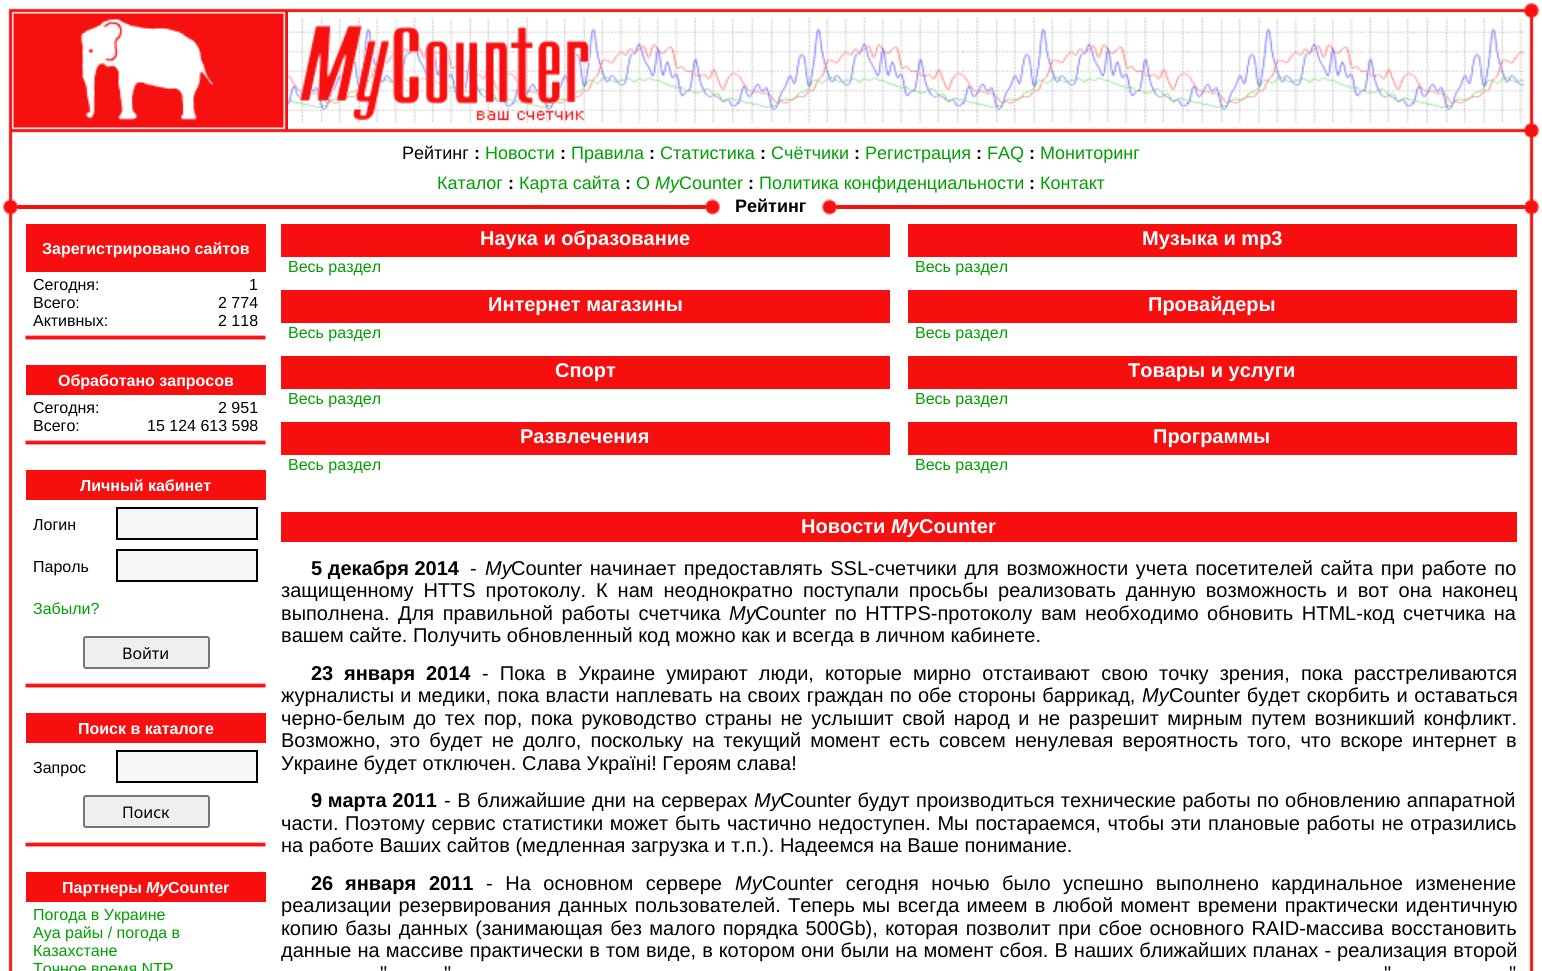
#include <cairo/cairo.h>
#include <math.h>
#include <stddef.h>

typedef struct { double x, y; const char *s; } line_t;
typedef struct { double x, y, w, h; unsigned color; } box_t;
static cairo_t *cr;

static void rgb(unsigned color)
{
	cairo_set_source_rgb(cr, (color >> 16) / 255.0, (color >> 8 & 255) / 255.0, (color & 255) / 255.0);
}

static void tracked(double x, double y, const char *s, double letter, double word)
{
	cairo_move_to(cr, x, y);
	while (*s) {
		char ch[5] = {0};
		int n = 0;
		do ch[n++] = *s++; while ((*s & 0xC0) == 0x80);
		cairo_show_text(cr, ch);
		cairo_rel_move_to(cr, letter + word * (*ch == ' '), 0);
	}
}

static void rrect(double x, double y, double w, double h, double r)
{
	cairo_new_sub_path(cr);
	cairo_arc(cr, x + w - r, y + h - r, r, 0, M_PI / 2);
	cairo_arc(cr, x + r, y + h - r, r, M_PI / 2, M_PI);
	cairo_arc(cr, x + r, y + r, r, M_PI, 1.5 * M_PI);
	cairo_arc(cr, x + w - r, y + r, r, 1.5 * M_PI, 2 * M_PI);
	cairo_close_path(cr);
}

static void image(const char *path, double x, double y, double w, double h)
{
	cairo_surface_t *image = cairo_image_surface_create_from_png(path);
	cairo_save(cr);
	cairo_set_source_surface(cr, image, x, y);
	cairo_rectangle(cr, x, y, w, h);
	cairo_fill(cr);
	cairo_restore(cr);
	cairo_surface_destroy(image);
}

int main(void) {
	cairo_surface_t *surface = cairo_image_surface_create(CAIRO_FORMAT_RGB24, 1542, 971);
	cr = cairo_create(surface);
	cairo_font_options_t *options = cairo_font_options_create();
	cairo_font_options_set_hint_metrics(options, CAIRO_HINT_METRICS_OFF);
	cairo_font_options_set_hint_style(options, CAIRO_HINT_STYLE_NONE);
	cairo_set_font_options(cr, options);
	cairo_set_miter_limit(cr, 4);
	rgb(0xffffff);
	cairo_paint(cr);
	image("img/1.png", 8, 8, 280, 130);
	image("img/2.png", 288, 8, 1236, 5);
	image("img/3.png", 1524, 3, 15, 15);
	image("img/4.png", 288, 18, 1236, 105);
	image("img/5.png", 299, 25, 291, 96);
	image("img/6.png", 1529, 18, 5, 105);
	image("img/2.png", 288, 128, 1236, 5);
	image("img/7.png", 1524, 123, 15, 15);
	image("img/8.png", 8, 138, 5, 60);
	image("img/8.png", 1529, 138, 5, 60);
	image("img/9.png", 8, 198, 5, 18);
	image("img/10.png", 3, 199, 15, 16);
	rgb(0xf71010);
	cairo_rectangle(cr, 18, 205, 687, 4);
	cairo_fill(cr);
	image("img/11.png", 705, 199, 15, 16);
	image("img/12.png", 822, 199, 15, 16);
	cairo_rectangle(cr, 837, 205, 687, 4);
	cairo_fill(cr);
	image("img/9.png", 1529, 198, 5, 18);
	image("img/13.png", 1524, 199, 15, 16);
	image("img/14.png", 8, 216, 5, 755);
	rgb(0xf70f0f);
	cairo_rectangle(cr, 26, 224, 240, 48);
	cairo_fill(cr);
	image("img/15.png", 25, 335, 241, 5);
	cairo_rectangle(cr, 26, 365, 240, 30);
	cairo_fill(cr);
	image("img/15.png", 25, 440, 241, 5);
	cairo_rectangle(cr, 26, 470, 240, 30);
	cairo_fill(cr);
	rgb(0xf7f7f7);
	cairo_rectangle(cr, 117, 508, 140, 31);
	cairo_fill_preserve(cr);
	rgb(0x000000);
	cairo_stroke(cr);
	rgb(0xf7f7f7);
	cairo_rectangle(cr, 117, 550, 140, 31);
	cairo_fill_preserve(cr);
	rgb(0x000000);
	cairo_stroke(cr);
	rgb(0xefefef);
	rrect(84, 637, 125, 31, 2);
	cairo_fill_preserve(cr);
	rgb(0x767676);
	cairo_stroke(cr);
	image("img/15.png", 25, 683, 241, 5);
	rgb(0xf70f0f);
	cairo_rectangle(cr, 26, 713, 240, 30);
	cairo_fill(cr);
	rgb(0xf7f7f7);
	cairo_rectangle(cr, 117, 751, 140, 31);
	cairo_fill_preserve(cr);
	rgb(0x000000);
	cairo_stroke(cr);
	rgb(0xefefef);
	rrect(84, 796, 125, 31, 2);
	cairo_fill_preserve(cr);
	rgb(0x767676);
	cairo_stroke(cr);
	image("img/15.png", 25, 842, 241, 5);
	{
		static const box_t items[] = {
			{26, 872, 240, 30, 0xf70f0f},
			{281, 224, 609, 33, 0xf70f0f},
			{908, 224, 609, 33, 0xf70f0f},
			{281, 290, 609, 33, 0xf70f0f},
			{908, 290, 609, 33, 0xf70f0f},
			{281, 356, 609, 33, 0xf70f0f},
			{908, 356, 609, 33, 0xf70f0f},
			{281, 422, 609, 33, 0xf70f0f},
			{908, 422, 609, 33, 0xf70f0f},
			{281, 512, 1236, 30, 0xf70f0f},
		};
		for (size_t i = 0; i < sizeof items / sizeof *items; i++) {
			rgb(items[i].color);
			cairo_rectangle(cr, items[i].x, items[i].y, items[i].w, items[i].h);
			cairo_fill(cr);
		}
	}
	image("img/14.png", 1529, 216, 5, 755);
	cairo_select_font_face(cr, "Liberation Sans", CAIRO_FONT_SLANT_NORMAL, CAIRO_FONT_WEIGHT_NORMAL);
	cairo_set_font_size(cr, 18);
	rgb(0x000000);
	cairo_move_to(cr, 402, 159);
	cairo_show_text(cr, "Рейтинг");
	cairo_select_font_face(cr, "Liberation Sans", CAIRO_FONT_SLANT_NORMAL, CAIRO_FONT_WEIGHT_BOLD);
	cairo_move_to(cr, 474, 159);
	cairo_show_text(cr, ":");
	cairo_select_font_face(cr, "Liberation Sans", CAIRO_FONT_SLANT_NORMAL, CAIRO_FONT_WEIGHT_NORMAL);
	rgb(0x00a000);
	cairo_move_to(cr, 485, 159);
	cairo_show_text(cr, "Новости");
	cairo_select_font_face(cr, "Liberation Sans", CAIRO_FONT_SLANT_NORMAL, CAIRO_FONT_WEIGHT_BOLD);
	rgb(0x000000);
	cairo_move_to(cr, 560, 159);
	cairo_show_text(cr, ":");
	cairo_select_font_face(cr, "Liberation Sans", CAIRO_FONT_SLANT_NORMAL, CAIRO_FONT_WEIGHT_NORMAL);
	rgb(0x00a000);
	cairo_move_to(cr, 571, 159);
	cairo_show_text(cr, "Правила");
	cairo_select_font_face(cr, "Liberation Sans", CAIRO_FONT_SLANT_NORMAL, CAIRO_FONT_WEIGHT_BOLD);
	rgb(0x000000);
	cairo_move_to(cr, 649, 159);
	cairo_show_text(cr, ":");
	cairo_select_font_face(cr, "Liberation Sans", CAIRO_FONT_SLANT_NORMAL, CAIRO_FONT_WEIGHT_NORMAL);
	rgb(0x00a000);
	cairo_move_to(cr, 660, 159);
	cairo_show_text(cr, "Статистика");
	cairo_select_font_face(cr, "Liberation Sans", CAIRO_FONT_SLANT_NORMAL, CAIRO_FONT_WEIGHT_BOLD);
	rgb(0x000000);
	cairo_move_to(cr, 760, 159);
	cairo_show_text(cr, ":");
	cairo_select_font_face(cr, "Liberation Sans", CAIRO_FONT_SLANT_NORMAL, CAIRO_FONT_WEIGHT_NORMAL);
	rgb(0x00a000);
	cairo_move_to(cr, 771, 159);
	cairo_show_text(cr, "Счётчики");
	cairo_select_font_face(cr, "Liberation Sans", CAIRO_FONT_SLANT_NORMAL, CAIRO_FONT_WEIGHT_BOLD);
	rgb(0x000000);
	cairo_move_to(cr, 854, 159);
	cairo_show_text(cr, ":");
	cairo_select_font_face(cr, "Liberation Sans", CAIRO_FONT_SLANT_NORMAL, CAIRO_FONT_WEIGHT_NORMAL);
	rgb(0x00a000);
	cairo_move_to(cr, 865, 159);
	cairo_show_text(cr, "Регистрация");
	cairo_select_font_face(cr, "Liberation Sans", CAIRO_FONT_SLANT_NORMAL, CAIRO_FONT_WEIGHT_BOLD);
	rgb(0x000000);
	cairo_move_to(cr, 976, 159);
	cairo_show_text(cr, ":");
	cairo_select_font_face(cr, "Liberation Sans", CAIRO_FONT_SLANT_NORMAL, CAIRO_FONT_WEIGHT_NORMAL);
	rgb(0x00a000);
	cairo_move_to(cr, 987, 159);
	cairo_show_text(cr, "FAQ");
	cairo_select_font_face(cr, "Liberation Sans", CAIRO_FONT_SLANT_NORMAL, CAIRO_FONT_WEIGHT_BOLD);
	rgb(0x000000);
	cairo_move_to(cr, 1029, 159);
	cairo_show_text(cr, ":");
	cairo_select_font_face(cr, "Liberation Sans", CAIRO_FONT_SLANT_NORMAL, CAIRO_FONT_WEIGHT_NORMAL);
	rgb(0x00a000);
	cairo_move_to(cr, 1040, 159);
	cairo_show_text(cr, "Мониторинг");
	cairo_move_to(cr, 437, 189);
	cairo_show_text(cr, "Каталог");
	cairo_select_font_face(cr, "Liberation Sans", CAIRO_FONT_SLANT_NORMAL, CAIRO_FONT_WEIGHT_BOLD);
	rgb(0x000000);
	cairo_move_to(cr, 508, 189);
	cairo_show_text(cr, ":");
	cairo_select_font_face(cr, "Liberation Sans", CAIRO_FONT_SLANT_NORMAL, CAIRO_FONT_WEIGHT_NORMAL);
	rgb(0x00a000);
	cairo_move_to(cr, 519, 189);
	cairo_show_text(cr, "Карта сайта");
	cairo_select_font_face(cr, "Liberation Sans", CAIRO_FONT_SLANT_NORMAL, CAIRO_FONT_WEIGHT_BOLD);
	rgb(0x000000);
	cairo_move_to(cr, 625, 189);
	cairo_show_text(cr, ":");
	cairo_select_font_face(cr, "Liberation Sans", CAIRO_FONT_SLANT_NORMAL, CAIRO_FONT_WEIGHT_NORMAL);
	rgb(0x00a000);
	cairo_move_to(cr, 636, 189);
	cairo_show_text(cr, "О");
	cairo_select_font_face(cr, "Liberation Sans", CAIRO_FONT_SLANT_ITALIC, CAIRO_FONT_WEIGHT_NORMAL);
	cairo_move_to(cr, 655, 189);
	cairo_show_text(cr, "My");
	cairo_select_font_face(cr, "Liberation Sans", CAIRO_FONT_SLANT_NORMAL, CAIRO_FONT_WEIGHT_NORMAL);
	cairo_move_to(cr, 679, 189);
	cairo_show_text(cr, "Counter");
	cairo_select_font_face(cr, "Liberation Sans", CAIRO_FONT_SLANT_NORMAL, CAIRO_FONT_WEIGHT_BOLD);
	rgb(0x000000);
	cairo_move_to(cr, 748, 189);
	cairo_show_text(cr, ":");
	cairo_select_font_face(cr, "Liberation Sans", CAIRO_FONT_SLANT_NORMAL, CAIRO_FONT_WEIGHT_NORMAL);
	rgb(0x00a000);
	cairo_move_to(cr, 759, 189);
	cairo_show_text(cr, "Политика конфиденциальности");
	cairo_select_font_face(cr, "Liberation Sans", CAIRO_FONT_SLANT_NORMAL, CAIRO_FONT_WEIGHT_BOLD);
	rgb(0x000000);
	cairo_move_to(cr, 1029, 189);
	cairo_show_text(cr, ":");
	cairo_select_font_face(cr, "Liberation Sans", CAIRO_FONT_SLANT_NORMAL, CAIRO_FONT_WEIGHT_NORMAL);
	rgb(0x00a000);
	cairo_move_to(cr, 1040, 189);
	cairo_show_text(cr, "Контакт");
	cairo_select_font_face(cr, "Liberation Sans", CAIRO_FONT_SLANT_NORMAL, CAIRO_FONT_WEIGHT_BOLD);
	rgb(0x000000);
	cairo_move_to(cr, 735, 212);
	cairo_show_text(cr, "Рейтинг");
	cairo_set_font_size(cr, 16);
	rgb(0xffffff);
	cairo_move_to(cr, 42, 254);
	cairo_show_text(cr, "Зарегистрировано сайтов");
	cairo_select_font_face(cr, "Liberation Sans", CAIRO_FONT_SLANT_NORMAL, CAIRO_FONT_WEIGHT_NORMAL);
	rgb(0x000000);
	{
		static const line_t items[] = {
			{33, 290, "Сегодня:"},
			{249, 290, "1"},
			{33, 308, "Всего:"},
			{218, 308, "2 774"},
			{33, 326, "Активных:"},
			{218, 326, "2 118"},
		};
		for (size_t i = 0; i < sizeof items / sizeof *items; i++) {
			cairo_move_to(cr, items[i].x, items[i].y);
			cairo_show_text(cr, items[i].s);
		}
	}
	cairo_select_font_face(cr, "Liberation Sans", CAIRO_FONT_SLANT_NORMAL, CAIRO_FONT_WEIGHT_BOLD);
	rgb(0xffffff);
	cairo_move_to(cr, 58, 386);
	cairo_show_text(cr, "Обработано запросов");
	cairo_select_font_face(cr, "Liberation Sans", CAIRO_FONT_SLANT_NORMAL, CAIRO_FONT_WEIGHT_NORMAL);
	rgb(0x000000);
	{
		static const line_t items[] = {
			{33, 413, "Сегодня:"},
			{218, 413, "2 951"},
			{33, 431, "Всего:"},
			{147, 431, "15 124 613 598"},
		};
		for (size_t i = 0; i < sizeof items / sizeof *items; i++) {
			cairo_move_to(cr, items[i].x, items[i].y);
			cairo_show_text(cr, items[i].s);
		}
	}
	cairo_select_font_face(cr, "Liberation Sans", CAIRO_FONT_SLANT_NORMAL, CAIRO_FONT_WEIGHT_BOLD);
	rgb(0xffffff);
	cairo_move_to(cr, 80, 491);
	cairo_show_text(cr, "Личный кабинет");
	cairo_select_font_face(cr, "Liberation Sans", CAIRO_FONT_SLANT_NORMAL, CAIRO_FONT_WEIGHT_NORMAL);
	rgb(0x000000);
	cairo_move_to(cr, 33, 530);
	cairo_show_text(cr, "Логин");
	cairo_move_to(cr, 33, 572);
	cairo_show_text(cr, "Пароль");
	rgb(0x00a000);
	cairo_move_to(cr, 33, 614);
	cairo_show_text(cr, "Забыли?");
	cairo_select_font_face(cr, "Noto Sans", CAIRO_FONT_SLANT_NORMAL, CAIRO_FONT_WEIGHT_NORMAL);
	rgb(0x000000);
	cairo_move_to(cr, 122, 659);
	cairo_show_text(cr, "Войти");
	cairo_select_font_face(cr, "Liberation Sans", CAIRO_FONT_SLANT_NORMAL, CAIRO_FONT_WEIGHT_BOLD);
	rgb(0xffffff);
	cairo_move_to(cr, 78, 734);
	cairo_show_text(cr, "Поиск в каталоге");
	cairo_select_font_face(cr, "Liberation Sans", CAIRO_FONT_SLANT_NORMAL, CAIRO_FONT_WEIGHT_NORMAL);
	rgb(0x000000);
	cairo_move_to(cr, 33, 773);
	cairo_show_text(cr, "Запрос");
	cairo_select_font_face(cr, "Noto Sans", CAIRO_FONT_SLANT_NORMAL, CAIRO_FONT_WEIGHT_NORMAL);
	cairo_move_to(cr, 122, 818);
	cairo_show_text(cr, "Поиск");
	cairo_select_font_face(cr, "Liberation Sans", CAIRO_FONT_SLANT_NORMAL, CAIRO_FONT_WEIGHT_BOLD);
	rgb(0xffffff);
	cairo_move_to(cr, 62, 893);
	cairo_show_text(cr, "Партнеры");
	cairo_select_font_face(cr, "Liberation Sans", CAIRO_FONT_SLANT_ITALIC, CAIRO_FONT_WEIGHT_BOLD);
	cairo_move_to(cr, 146, 893);
	cairo_show_text(cr, "My");
	cairo_select_font_face(cr, "Liberation Sans", CAIRO_FONT_SLANT_NORMAL, CAIRO_FONT_WEIGHT_BOLD);
	cairo_move_to(cr, 168, 893);
	cairo_show_text(cr, "Counter");
	cairo_select_font_face(cr, "Liberation Sans", CAIRO_FONT_SLANT_NORMAL, CAIRO_FONT_WEIGHT_NORMAL);
	rgb(0x00a000);
	{
		static const line_t items[] = {
			{33, 920, "Погода в Украине"},
			{33, 938, "Ауа райы / погода в"},
			{33, 956, "Казахстане"},
			{33, 974, "Точное время NTP"},
		};
		for (size_t i = 0; i < sizeof items / sizeof *items; i++) {
			cairo_move_to(cr, items[i].x, items[i].y);
			cairo_show_text(cr, items[i].s);
		}
	}
	cairo_select_font_face(cr, "Liberation Sans", CAIRO_FONT_SLANT_NORMAL, CAIRO_FONT_WEIGHT_BOLD);
	cairo_set_font_size(cr, 20);
	rgb(0xffffff);
	cairo_move_to(cr, 480, 245);
	cairo_show_text(cr, "Наука и образование");
	cairo_select_font_face(cr, "Liberation Sans", CAIRO_FONT_SLANT_NORMAL, CAIRO_FONT_WEIGHT_NORMAL);
	cairo_set_font_size(cr, 16);
	rgb(0x00a000);
	cairo_move_to(cr, 288, 272);
	cairo_show_text(cr, "Весь раздел");
	cairo_select_font_face(cr, "Liberation Sans", CAIRO_FONT_SLANT_NORMAL, CAIRO_FONT_WEIGHT_BOLD);
	cairo_set_font_size(cr, 20);
	rgb(0xffffff);
	cairo_move_to(cr, 1142, 245);
	cairo_show_text(cr, "Музыка и mp3");
	cairo_select_font_face(cr, "Liberation Sans", CAIRO_FONT_SLANT_NORMAL, CAIRO_FONT_WEIGHT_NORMAL);
	cairo_set_font_size(cr, 16);
	rgb(0x00a000);
	cairo_move_to(cr, 915, 272);
	cairo_show_text(cr, "Весь раздел");
	cairo_select_font_face(cr, "Liberation Sans", CAIRO_FONT_SLANT_NORMAL, CAIRO_FONT_WEIGHT_BOLD);
	cairo_set_font_size(cr, 20);
	rgb(0xffffff);
	cairo_move_to(cr, 488, 311);
	cairo_show_text(cr, "Интернет магазины");
	cairo_select_font_face(cr, "Liberation Sans", CAIRO_FONT_SLANT_NORMAL, CAIRO_FONT_WEIGHT_NORMAL);
	cairo_set_font_size(cr, 16);
	rgb(0x00a000);
	cairo_move_to(cr, 288, 338);
	cairo_show_text(cr, "Весь раздел");
	cairo_select_font_face(cr, "Liberation Sans", CAIRO_FONT_SLANT_NORMAL, CAIRO_FONT_WEIGHT_BOLD);
	cairo_set_font_size(cr, 20);
	rgb(0xffffff);
	cairo_move_to(cr, 1148, 311);
	cairo_show_text(cr, "Провайдеры");
	cairo_select_font_face(cr, "Liberation Sans", CAIRO_FONT_SLANT_NORMAL, CAIRO_FONT_WEIGHT_NORMAL);
	cairo_set_font_size(cr, 16);
	rgb(0x00a000);
	cairo_move_to(cr, 915, 338);
	cairo_show_text(cr, "Весь раздел");
	cairo_select_font_face(cr, "Liberation Sans", CAIRO_FONT_SLANT_NORMAL, CAIRO_FONT_WEIGHT_BOLD);
	cairo_set_font_size(cr, 20);
	rgb(0xffffff);
	cairo_move_to(cr, 555, 377);
	cairo_show_text(cr, "Спорт");
	cairo_select_font_face(cr, "Liberation Sans", CAIRO_FONT_SLANT_NORMAL, CAIRO_FONT_WEIGHT_NORMAL);
	cairo_set_font_size(cr, 16);
	rgb(0x00a000);
	cairo_move_to(cr, 288, 404);
	cairo_show_text(cr, "Весь раздел");
	cairo_select_font_face(cr, "Liberation Sans", CAIRO_FONT_SLANT_NORMAL, CAIRO_FONT_WEIGHT_BOLD);
	cairo_set_font_size(cr, 20);
	rgb(0xffffff);
	cairo_move_to(cr, 1128, 377);
	cairo_show_text(cr, "Товары и услуги");
	cairo_select_font_face(cr, "Liberation Sans", CAIRO_FONT_SLANT_NORMAL, CAIRO_FONT_WEIGHT_NORMAL);
	cairo_set_font_size(cr, 16);
	rgb(0x00a000);
	cairo_move_to(cr, 915, 404);
	cairo_show_text(cr, "Весь раздел");
	cairo_select_font_face(cr, "Liberation Sans", CAIRO_FONT_SLANT_NORMAL, CAIRO_FONT_WEIGHT_BOLD);
	cairo_set_font_size(cr, 20);
	rgb(0xffffff);
	cairo_move_to(cr, 520, 443);
	cairo_show_text(cr, "Развлечения");
	cairo_select_font_face(cr, "Liberation Sans", CAIRO_FONT_SLANT_NORMAL, CAIRO_FONT_WEIGHT_NORMAL);
	cairo_set_font_size(cr, 16);
	rgb(0x00a000);
	cairo_move_to(cr, 288, 470);
	cairo_show_text(cr, "Весь раздел");
	cairo_select_font_face(cr, "Liberation Sans", CAIRO_FONT_SLANT_NORMAL, CAIRO_FONT_WEIGHT_BOLD);
	cairo_set_font_size(cr, 20);
	rgb(0xffffff);
	cairo_move_to(cr, 1153, 443);
	cairo_show_text(cr, "Программы");
	cairo_select_font_face(cr, "Liberation Sans", CAIRO_FONT_SLANT_NORMAL, CAIRO_FONT_WEIGHT_NORMAL);
	cairo_set_font_size(cr, 16);
	rgb(0x00a000);
	cairo_move_to(cr, 915, 470);
	cairo_show_text(cr, "Весь раздел");
	cairo_select_font_face(cr, "Liberation Sans", CAIRO_FONT_SLANT_NORMAL, CAIRO_FONT_WEIGHT_BOLD);
	cairo_set_font_size(cr, 20);
	rgb(0xffffff);
	cairo_move_to(cr, 801, 533);
	cairo_show_text(cr, "Новости");
	cairo_select_font_face(cr, "Liberation Sans", CAIRO_FONT_SLANT_ITALIC, CAIRO_FONT_WEIGHT_BOLD);
	cairo_move_to(cr, 891, 533);
	cairo_show_text(cr, "My");
	cairo_select_font_face(cr, "Liberation Sans", CAIRO_FONT_SLANT_NORMAL, CAIRO_FONT_WEIGHT_BOLD);
	cairo_move_to(cr, 919, 533);
	cairo_show_text(cr, "Counter");
	rgb(0x000000);
	cairo_move_to(cr, 311, 575);
	cairo_show_text(cr, "5 декабря 2014");
	cairo_select_font_face(cr, "Liberation Sans", CAIRO_FONT_SLANT_NORMAL, CAIRO_FONT_WEIGHT_NORMAL);
	cairo_move_to(cr, 470, 575);
	cairo_show_text(cr, "-");
	cairo_select_font_face(cr, "Liberation Sans", CAIRO_FONT_SLANT_ITALIC, CAIRO_FONT_WEIGHT_NORMAL);
	cairo_move_to(cr, 485, 575);
	cairo_show_text(cr, "My");
	cairo_select_font_face(cr, "Liberation Sans", CAIRO_FONT_SLANT_NORMAL, CAIRO_FONT_WEIGHT_NORMAL);
	tracked(511, 575, "Counter начинает предоставлять SSL-счетчики для возможности учета посетителей сайта при работе по", 0, 2.1);
	tracked(281, 597, "защищенному HTTS протоколу. К нам неоднократно поступали просьбы реализовать данную возможность и вот она наконец", 0, 4.4);
	tracked(281, 620, "выполнена. Для правильной работы счетчика", 0, 3);
	cairo_select_font_face(cr, "Liberation Sans", CAIRO_FONT_SLANT_ITALIC, CAIRO_FONT_WEIGHT_NORMAL);
	cairo_move_to(cr, 729, 620);
	cairo_show_text(cr, "My");
	cairo_select_font_face(cr, "Liberation Sans", CAIRO_FONT_SLANT_NORMAL, CAIRO_FONT_WEIGHT_NORMAL);
	tracked(755, 620, "Counter по HTTPS-протоколу вам необходимо обновить HTML-код счетчика на", 0, 3);
	cairo_move_to(cr, 281, 642);
	cairo_show_text(cr, "вашем сайте. Получить обновленный код можно как и всегда в личном кабинете.");
	cairo_select_font_face(cr, "Liberation Sans", CAIRO_FONT_SLANT_NORMAL, CAIRO_FONT_WEIGHT_BOLD);
	cairo_move_to(cr, 311, 680);
	cairo_show_text(cr, "23");
	cairo_move_to(cr, 344, 680);
	cairo_show_text(cr, "января");
	cairo_move_to(cr, 426, 680);
	cairo_show_text(cr, "2014");
	cairo_select_font_face(cr, "Liberation Sans", CAIRO_FONT_SLANT_NORMAL, CAIRO_FONT_WEIGHT_NORMAL);
	tracked(482, 680, "- Пока в Украине умирают люди, которые мирно отстаивают свою точку зрения, пока расстреливаются", 0, 5.6);
	tracked(281, 702, "журналисты и медики, пока власти наплевать на своих граждан по обе стороны баррикад,", 0, 0.75);
	cairo_select_font_face(cr, "Liberation Sans", CAIRO_FONT_SLANT_ITALIC, CAIRO_FONT_WEIGHT_NORMAL);
	cairo_move_to(cr, 1142, 702);
	cairo_show_text(cr, "My");
	cairo_select_font_face(cr, "Liberation Sans", CAIRO_FONT_SLANT_NORMAL, CAIRO_FONT_WEIGHT_NORMAL);
	tracked(1169, 702, "Counter будет скорбить и оставаться", 0, 1);
	tracked(281, 725, "черно-белым до тех пор, пока руководство страны не услышит свой народ и не разрешит мирным путем возникший конфликт.", 0, 3);
	tracked(281, 747, "Возможно, это будет не долго, поскольку на текущий момент есть совсем ненулевая вероятность того, что вскоре интернет в", 0, 3.5);
	cairo_move_to(cr, 281, 770);
	cairo_show_text(cr, "Украине будет отключен. Слава Україні! Героям слава!");
	cairo_select_font_face(cr, "Liberation Sans", CAIRO_FONT_SLANT_NORMAL, CAIRO_FONT_WEIGHT_BOLD);
	cairo_move_to(cr, 311, 807);
	cairo_show_text(cr, "9 марта 2011");
	cairo_select_font_face(cr, "Liberation Sans", CAIRO_FONT_SLANT_NORMAL, CAIRO_FONT_WEIGHT_NORMAL);
	tracked(444, 807, "- В ближайшие дни на серверах", 0, 1);
	cairo_select_font_face(cr, "Liberation Sans", CAIRO_FONT_SLANT_ITALIC, CAIRO_FONT_WEIGHT_NORMAL);
	cairo_move_to(cr, 754, 807);
	cairo_show_text(cr, "My");
	cairo_select_font_face(cr, "Liberation Sans", CAIRO_FONT_SLANT_NORMAL, CAIRO_FONT_WEIGHT_NORMAL);
	tracked(780, 807, "Counter будут производиться технические работы по обновлению аппаратной", 0, 0.75);
	tracked(281, 830, "части. Поэтому сервис статистики может быть частично недоступен. Мы постараемся, чтобы эти плановые работы не отразились", 0, 1.1);
	cairo_move_to(cr, 281, 852);
	cairo_show_text(cr, "на работе Ваших сайтов (медленная загрузка и т.п.). Надеемся на Ваше понимание.");
	cairo_select_font_face(cr, "Liberation Sans", CAIRO_FONT_SLANT_NORMAL, CAIRO_FONT_WEIGHT_BOLD);
	cairo_move_to(cr, 311, 890);
	cairo_show_text(cr, "26");
	cairo_move_to(cr, 345, 890);
	cairo_show_text(cr, "января");
	cairo_move_to(cr, 429, 890);
	cairo_show_text(cr, "2011");
	cairo_select_font_face(cr, "Liberation Sans", CAIRO_FONT_SLANT_NORMAL, CAIRO_FONT_WEIGHT_NORMAL);
	tracked(486, 890, "- На основном сервере", 0, 7);
	cairo_select_font_face(cr, "Liberation Sans", CAIRO_FONT_SLANT_ITALIC, CAIRO_FONT_WEIGHT_NORMAL);
	cairo_move_to(cr, 735, 890);
	cairo_show_text(cr, "My");
	cairo_select_font_face(cr, "Liberation Sans", CAIRO_FONT_SLANT_NORMAL, CAIRO_FONT_WEIGHT_NORMAL);
	tracked(762, 890, "Counter сегодня ночью было успешно выполнено кардинальное изменение", 0, 7);
	tracked(281, 912, "реализации резервирования данных пользователей. Теперь мы всегда имеем в любой момент времени практически идентичную", 0, 1.7);
	tracked(281, 935, "копию базы данных (занимающая без малого порядка 500Gb), которая позволит при сбое основного RAID-массива восстановить", 0, 1.8);
	tracked(281, 957, "данные на массиве практически в том виде, в котором они были на момент сбоя. В наших ближайших планах - реализация второй", 0, 0.5);
	{
		static const line_t items[] = {
			{380, 980, "\""},
			{444, 980, "\""},
			{1384, 980, "\""},
			{1509, 980, "\""},
		};
		for (size_t i = 0; i < sizeof items / sizeof *items; i++) {
			tracked(items[i].x, items[i].y, items[i].s, 0, 6);
		}
	}
	cairo_surface_write_to_png(surface, "page.png");
	cairo_font_options_destroy(options);
	cairo_destroy(cr);
	cairo_surface_destroy(surface);
	return 0;
}
